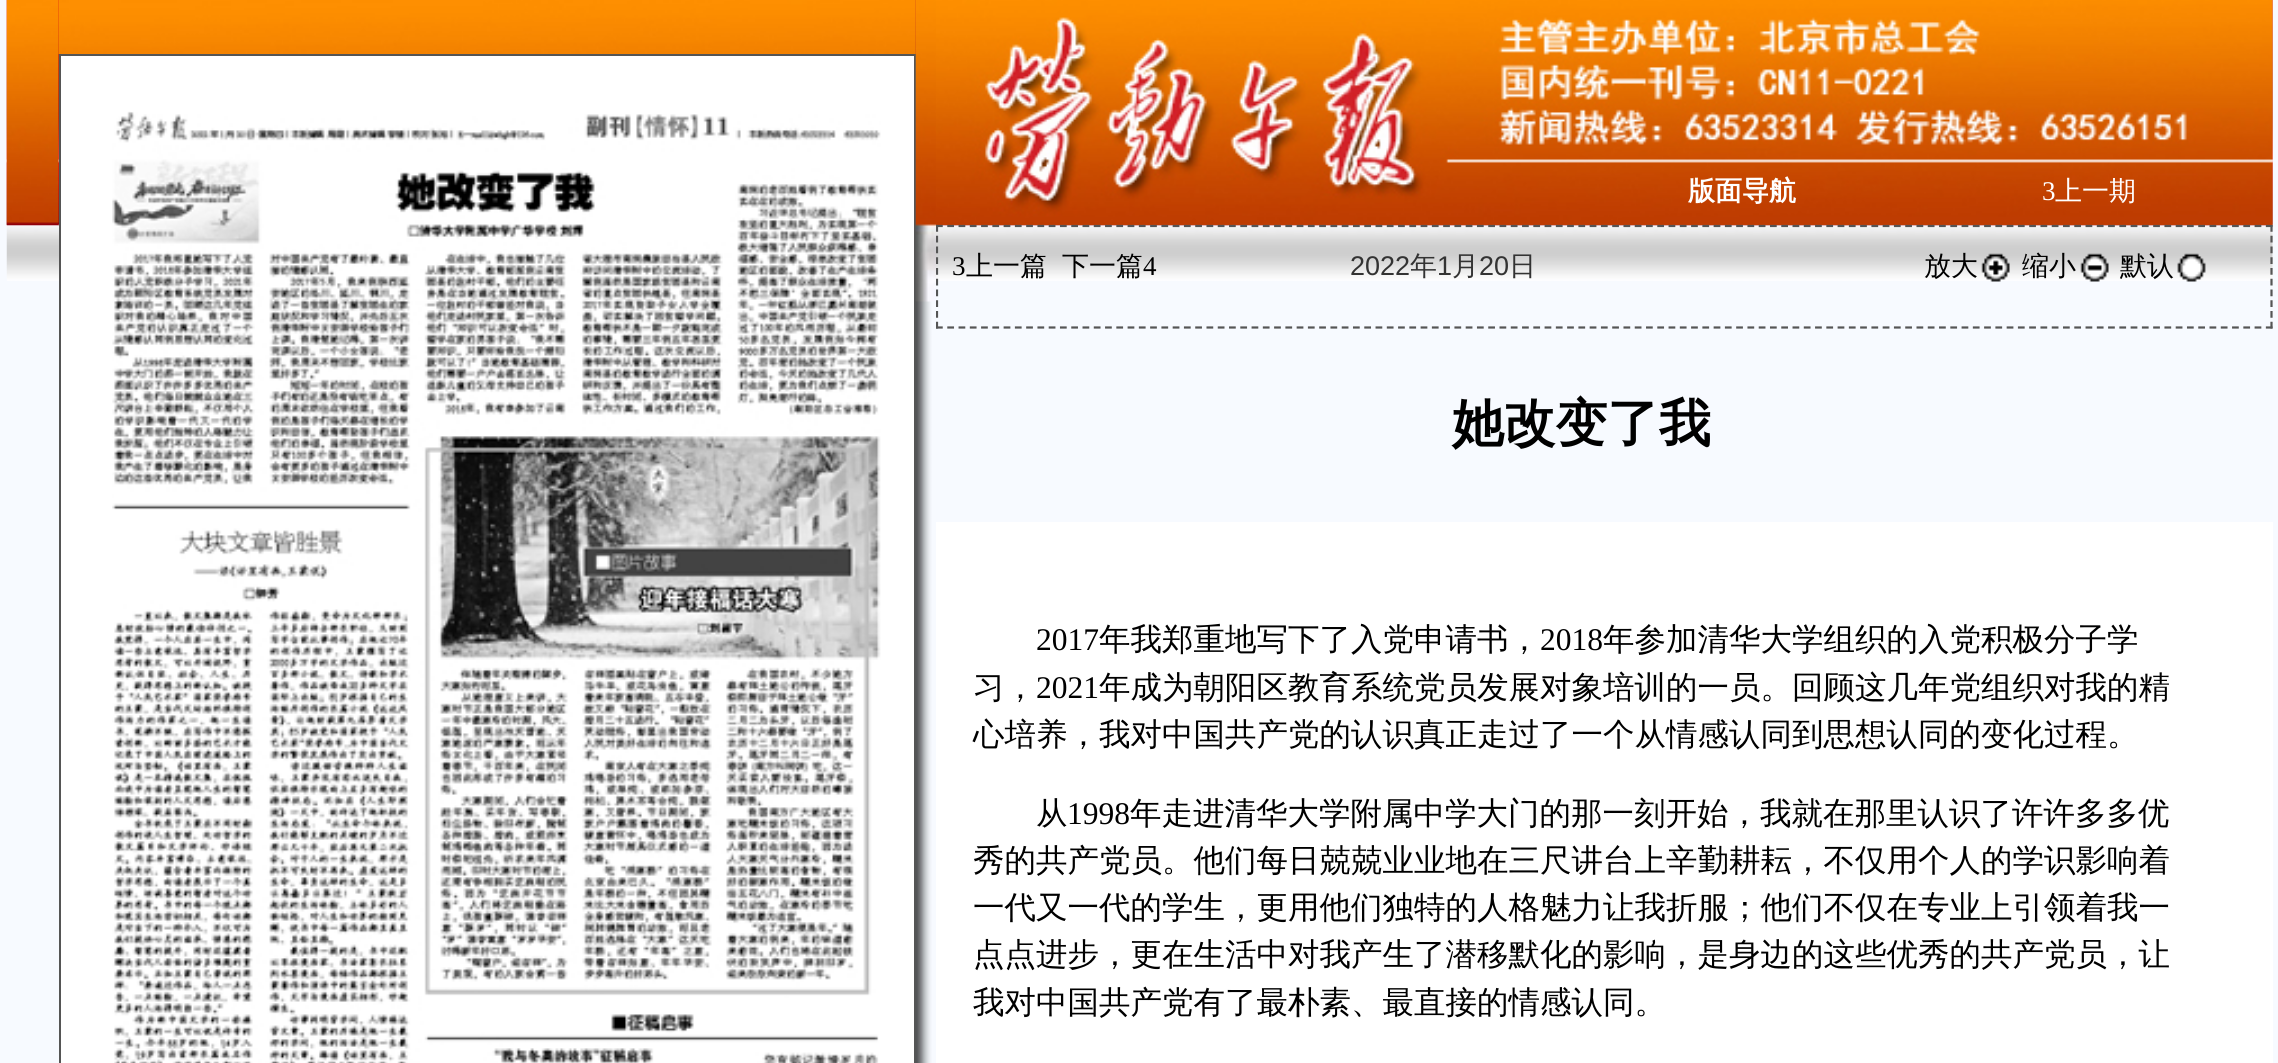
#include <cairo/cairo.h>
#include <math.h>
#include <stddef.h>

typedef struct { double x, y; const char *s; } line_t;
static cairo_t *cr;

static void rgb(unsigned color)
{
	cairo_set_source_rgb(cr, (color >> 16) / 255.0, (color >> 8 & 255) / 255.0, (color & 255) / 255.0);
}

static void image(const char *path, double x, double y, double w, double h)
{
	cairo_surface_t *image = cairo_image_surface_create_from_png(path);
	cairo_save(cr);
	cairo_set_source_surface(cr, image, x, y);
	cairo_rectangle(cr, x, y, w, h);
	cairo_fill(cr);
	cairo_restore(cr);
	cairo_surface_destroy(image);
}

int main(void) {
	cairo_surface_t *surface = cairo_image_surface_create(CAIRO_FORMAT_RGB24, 2278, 1063);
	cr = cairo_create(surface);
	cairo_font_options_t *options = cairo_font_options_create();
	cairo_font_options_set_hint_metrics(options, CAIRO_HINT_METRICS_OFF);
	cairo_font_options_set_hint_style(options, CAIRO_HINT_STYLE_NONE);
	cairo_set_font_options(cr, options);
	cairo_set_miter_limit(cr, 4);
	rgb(0xf7faff);
	cairo_paint(cr);
	image("img/1.png", 6, 0, 2267, 281);
	image("img/2.png", 6, 0, 53, 225);
	image("img/7.png", 936, 0, 1337, 225);
	cairo_new_path(cr);
	cairo_move_to(cr, 936, 226);
	cairo_line_to(cr, 2272.5, 226);
	rgb(0x555555);
	cairo_set_line_width(cr, 2.2);
	cairo_set_dash(cr, (double[]){6.75, 4.52}, 2, 0);
	cairo_stroke(cr);
	cairo_new_path(cr);
	cairo_move_to(cr, 2271.5, 225);
	cairo_line_to(cr, 2271.5, 328.5);
	cairo_set_dash(cr, (double[]){6.75, 4}, 2, 0);
	cairo_stroke(cr);
	cairo_new_path(cr);
	cairo_move_to(cr, 936, 327.5);
	cairo_line_to(cr, 2272.5, 327.5);
	cairo_set_dash(cr, (double[]){6.75, 4.52}, 2, 0);
	cairo_stroke(cr);
	cairo_new_path(cr);
	cairo_move_to(cr, 937, 225);
	cairo_line_to(cr, 937, 328.5);
	cairo_set_dash(cr, (double[]){6.75, 4}, 2, 0);
	cairo_stroke(cr);
	image("img/4.png", 915, 0, 21, 1063);
	image("img/3.png", 58, 0, 858, 54);
	rgb(0xffffff);
	cairo_rectangle(cr, 60, 55, 855, 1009);
	cairo_fill_preserve(cr);
	rgb(0x555555);
	cairo_set_line_width(cr, 2);
	cairo_set_dash(cr, NULL, 0, 0);
	cairo_stroke(cr);
	image("img/5.png", 915, 0, 21, 302);
	image("img/6.png", 112, 111, 769, 952);
	image("img/8.png", 1981, 253, 29, 29);
	image("img/9.png", 2080, 253, 29, 29);
	image("img/10.png", 2177, 253, 29, 29);
	rgb(0xffffff);
	cairo_rectangle(cr, 936, 522, 1337, 541);
	cairo_fill(cr);
	cairo_select_font_face(cr, "WenQuanYi Zen Hei", CAIRO_FONT_SLANT_NORMAL, CAIRO_FONT_WEIGHT_BOLD);
	cairo_set_font_size(cr, 27);
	cairo_move_to(cr, 1688, 200);
	cairo_show_text(cr, "版面导航");
	cairo_select_font_face(cr, "Liberation Serif", CAIRO_FONT_SLANT_NORMAL, CAIRO_FONT_WEIGHT_NORMAL);
	cairo_move_to(cr, 2042, 200);
	cairo_show_text(cr, "3");
	cairo_select_font_face(cr, "WenQuanYi Zen Hei Medium", CAIRO_FONT_SLANT_NORMAL, CAIRO_FONT_WEIGHT_NORMAL);
	cairo_move_to(cr, 2055, 200);
	cairo_show_text(cr, "上一期");
	cairo_select_font_face(cr, "Liberation Serif", CAIRO_FONT_SLANT_NORMAL, CAIRO_FONT_WEIGHT_NORMAL);
	rgb(0x000000);
	cairo_move_to(cr, 952, 275);
	cairo_show_text(cr, "3");
	cairo_select_font_face(cr, "WenQuanYi Zen Hei Medium", CAIRO_FONT_SLANT_NORMAL, CAIRO_FONT_WEIGHT_NORMAL);
	cairo_move_to(cr, 966, 275);
	cairo_show_text(cr, "上一篇");
	cairo_move_to(cr, 1062, 275);
	cairo_show_text(cr, "下一篇");
	cairo_select_font_face(cr, "Liberation Serif", CAIRO_FONT_SLANT_NORMAL, CAIRO_FONT_WEIGHT_NORMAL);
	cairo_move_to(cr, 1143, 275);
	cairo_show_text(cr, "4");
	cairo_select_font_face(cr, "Liberation Sans", CAIRO_FONT_SLANT_NORMAL, CAIRO_FONT_WEIGHT_NORMAL);
	rgb(0x333333);
	cairo_move_to(cr, 1350, 275);
	cairo_show_text(cr, "2022");
	cairo_select_font_face(cr, "WenQuanYi Zen Hei Medium", CAIRO_FONT_SLANT_NORMAL, CAIRO_FONT_WEIGHT_NORMAL);
	cairo_move_to(cr, 1410, 275);
	cairo_show_text(cr, "年");
	cairo_select_font_face(cr, "Liberation Sans", CAIRO_FONT_SLANT_NORMAL, CAIRO_FONT_WEIGHT_NORMAL);
	cairo_move_to(cr, 1437, 275);
	cairo_show_text(cr, "1");
	cairo_select_font_face(cr, "WenQuanYi Zen Hei Medium", CAIRO_FONT_SLANT_NORMAL, CAIRO_FONT_WEIGHT_NORMAL);
	cairo_move_to(cr, 1452, 275);
	cairo_show_text(cr, "月");
	cairo_select_font_face(cr, "Liberation Sans", CAIRO_FONT_SLANT_NORMAL, CAIRO_FONT_WEIGHT_NORMAL);
	cairo_move_to(cr, 1479, 275);
	cairo_show_text(cr, "20");
	cairo_select_font_face(cr, "WenQuanYi Zen Hei Medium", CAIRO_FONT_SLANT_NORMAL, CAIRO_FONT_WEIGHT_NORMAL);
	cairo_move_to(cr, 1509, 275);
	cairo_show_text(cr, "日");
	rgb(0x000000);
	{
		static const line_t items[] = {
			{1924, 275, "放大"},
			{2022, 275, "缩小"},
			{2120, 275, "默认"},
		};
		for (size_t i = 0; i < sizeof items / sizeof *items; i++) {
			cairo_move_to(cr, items[i].x, items[i].y);
			cairo_show_text(cr, items[i].s);
		}
	}
	cairo_select_font_face(cr, "WenQuanYi Zen Hei", CAIRO_FONT_SLANT_NORMAL, CAIRO_FONT_WEIGHT_BOLD);
	cairo_set_font_size(cr, 51.75);
	cairo_move_to(cr, 1452, 441);
	cairo_show_text(cr, "她改变了我");
	cairo_select_font_face(cr, "Liberation Serif", CAIRO_FONT_SLANT_NORMAL, CAIRO_FONT_WEIGHT_NORMAL);
	cairo_set_font_size(cr, 31.5);
	cairo_move_to(cr, 1036, 650);
	cairo_show_text(cr, "2017");
	cairo_select_font_face(cr, "WenQuanYi Zen Hei Medium", CAIRO_FONT_SLANT_NORMAL, CAIRO_FONT_WEIGHT_NORMAL);
	cairo_move_to(cr, 1099, 650);
	cairo_show_text(cr, "年我郑重地写下了入党申请书，");
	cairo_select_font_face(cr, "Liberation Serif", CAIRO_FONT_SLANT_NORMAL, CAIRO_FONT_WEIGHT_NORMAL);
	cairo_move_to(cr, 1540, 650);
	cairo_show_text(cr, "2018");
	cairo_select_font_face(cr, "WenQuanYi Zen Hei Medium", CAIRO_FONT_SLANT_NORMAL, CAIRO_FONT_WEIGHT_NORMAL);
	cairo_move_to(cr, 1603, 650);
	cairo_show_text(cr, "年参加清华大学组织的入党积极分子学");
	cairo_move_to(cr, 973, 698);
	cairo_show_text(cr, "习，");
	cairo_select_font_face(cr, "Liberation Serif", CAIRO_FONT_SLANT_NORMAL, CAIRO_FONT_WEIGHT_NORMAL);
	cairo_move_to(cr, 1036, 698);
	cairo_show_text(cr, "2021");
	cairo_select_font_face(cr, "WenQuanYi Zen Hei Medium", CAIRO_FONT_SLANT_NORMAL, CAIRO_FONT_WEIGHT_NORMAL);
	{
		static const line_t items[] = {
			{1099, 698, "年成为朝阳区教育系统党员发展对象培训的一员。回顾这几年党组织对我的精"},
			{973, 745, "心培养，我对中国共产党的认识真正走过了一个从情感认同到思想认同的变化过程。"},
			{1036, 824, "从"},
		};
		for (size_t i = 0; i < sizeof items / sizeof *items; i++) {
			cairo_move_to(cr, items[i].x, items[i].y);
			cairo_show_text(cr, items[i].s);
		}
	}
	cairo_select_font_face(cr, "Liberation Serif", CAIRO_FONT_SLANT_NORMAL, CAIRO_FONT_WEIGHT_NORMAL);
	cairo_move_to(cr, 1067, 824);
	cairo_show_text(cr, "1998");
	cairo_select_font_face(cr, "WenQuanYi Zen Hei Medium", CAIRO_FONT_SLANT_NORMAL, CAIRO_FONT_WEIGHT_NORMAL);
	{
		static const line_t items[] = {
			{1130, 824, "年走进清华大学附属中学大门的那一刻开始，我就在那里认识了许许多多优"},
			{973, 871, "秀的共产党员。他们每日兢兢业业地在三尺讲台上辛勤耕耘，不仅用个人的学识影响着"},
			{973, 918, "一代又一代的学生，更用他们独特的人格魅力让我折服；他们不仅在专业上引领着我一"},
			{973, 965, "点点进步，更在生活中对我产生了潜移默化的影响，是身边的这些优秀的共产党员，让"},
			{973, 1013, "我对中国共产党有了最朴素、最直接的情感认同。"},
		};
		for (size_t i = 0; i < sizeof items / sizeof *items; i++) {
			cairo_move_to(cr, items[i].x, items[i].y);
			cairo_show_text(cr, items[i].s);
		}
	}
	cairo_surface_write_to_png(surface, "page.png");
	cairo_font_options_destroy(options);
	cairo_destroy(cr);
	cairo_surface_destroy(surface);
	return 0;
}
